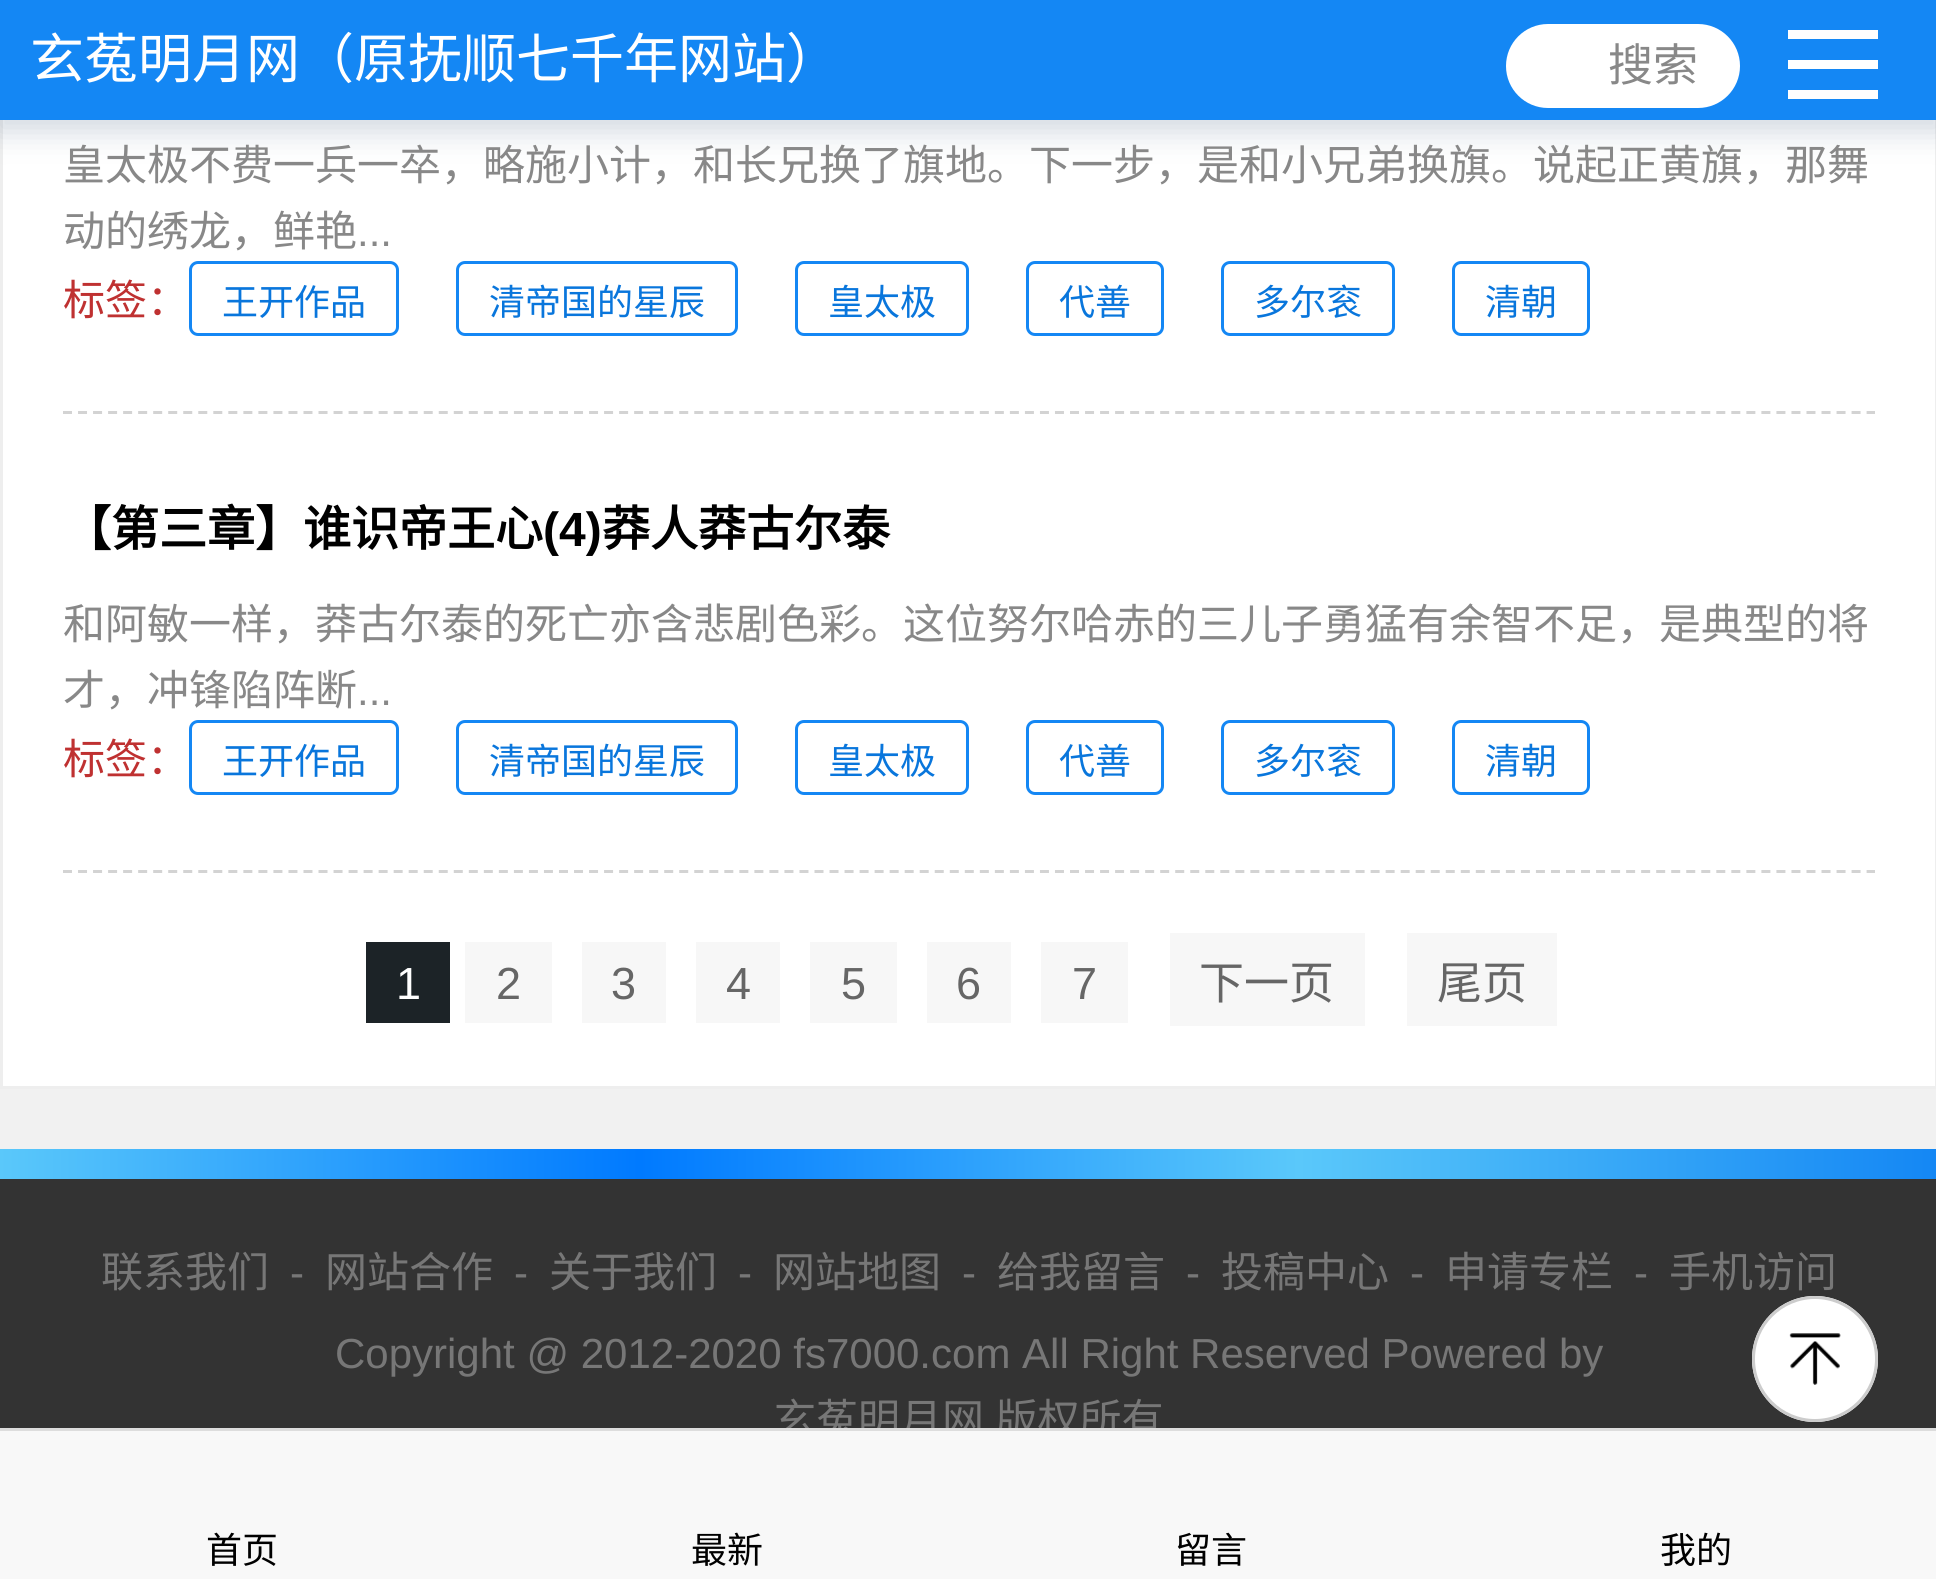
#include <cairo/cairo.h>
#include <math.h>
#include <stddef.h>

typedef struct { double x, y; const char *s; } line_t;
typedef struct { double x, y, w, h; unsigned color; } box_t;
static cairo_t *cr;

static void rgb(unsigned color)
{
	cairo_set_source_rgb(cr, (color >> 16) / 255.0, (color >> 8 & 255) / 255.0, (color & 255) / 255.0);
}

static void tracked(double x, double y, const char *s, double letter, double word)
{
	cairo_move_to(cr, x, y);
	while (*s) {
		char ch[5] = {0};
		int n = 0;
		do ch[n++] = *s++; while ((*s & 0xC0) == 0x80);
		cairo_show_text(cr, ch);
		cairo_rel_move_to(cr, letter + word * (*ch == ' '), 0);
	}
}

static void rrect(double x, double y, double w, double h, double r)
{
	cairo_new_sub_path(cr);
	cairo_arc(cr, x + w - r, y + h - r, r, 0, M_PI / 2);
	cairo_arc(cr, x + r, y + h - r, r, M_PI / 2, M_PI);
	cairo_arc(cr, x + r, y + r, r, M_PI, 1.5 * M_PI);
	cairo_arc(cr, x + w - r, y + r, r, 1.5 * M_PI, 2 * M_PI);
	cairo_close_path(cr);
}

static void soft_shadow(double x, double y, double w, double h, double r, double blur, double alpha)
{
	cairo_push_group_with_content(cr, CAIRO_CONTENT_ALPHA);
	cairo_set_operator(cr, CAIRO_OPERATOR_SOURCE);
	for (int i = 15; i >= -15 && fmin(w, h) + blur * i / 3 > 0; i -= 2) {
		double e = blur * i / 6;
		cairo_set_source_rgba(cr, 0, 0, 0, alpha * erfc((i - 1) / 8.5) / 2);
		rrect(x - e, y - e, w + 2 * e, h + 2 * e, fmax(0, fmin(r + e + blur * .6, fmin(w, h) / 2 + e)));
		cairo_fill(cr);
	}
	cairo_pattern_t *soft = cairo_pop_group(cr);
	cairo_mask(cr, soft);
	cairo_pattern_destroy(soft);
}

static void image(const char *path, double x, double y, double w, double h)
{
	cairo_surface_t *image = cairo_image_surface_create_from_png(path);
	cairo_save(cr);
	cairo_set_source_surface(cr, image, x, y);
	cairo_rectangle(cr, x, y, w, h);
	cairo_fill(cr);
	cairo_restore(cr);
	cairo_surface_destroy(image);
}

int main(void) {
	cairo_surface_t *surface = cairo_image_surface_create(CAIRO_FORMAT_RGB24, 1936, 1579);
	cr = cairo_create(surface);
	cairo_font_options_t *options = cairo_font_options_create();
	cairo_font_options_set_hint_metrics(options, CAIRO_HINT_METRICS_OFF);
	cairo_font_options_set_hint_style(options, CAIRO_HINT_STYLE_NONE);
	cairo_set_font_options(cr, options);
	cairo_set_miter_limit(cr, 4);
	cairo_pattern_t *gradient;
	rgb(0xf1f1f1);
	cairo_paint(cr);
	rgb(0xffffff);
	cairo_rectangle(cr, 3, 120, 1932, 966);
	cairo_fill(cr);
	cairo_rectangle(cr, 1.5, -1.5, 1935, 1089);
	rgb(0xeeeeee);
	cairo_set_line_width(cr, 3);
	cairo_stroke(cr);
	rgb(0x90a1b4);
	soft_shadow(-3, 6, 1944, 126, 0, 15, 0.4);
	{
		static const box_t items[] = {
			{0, 0, 1936, 120, 0x1487f4},
			{1788, 60, 90, 9, 0xffffff},
			{1788, 30, 90, 9, 0xfffefe},
			{1788, 90, 90, 9, 0xfffefe},
		};
		for (size_t i = 0; i < sizeof items / sizeof *items; i++) {
			rgb(items[i].color);
			cairo_rectangle(cr, items[i].x, items[i].y, items[i].w, items[i].h);
			cairo_fill(cr);
		}
	}
	rgb(0xffffff);
	rrect(1506, 24, 234, 84, 42);
	cairo_fill(cr);
	cairo_new_path(cr);
	cairo_move_to(cr, 63, 412.5);
	cairo_line_to(cr, 1875, 412.5);
	rgb(0xd3d3d3);
	cairo_set_dash(cr, (double[]){9, 6.03}, 2, 0);
	cairo_stroke(cr);
	rrect(190.5, 262.5, 207, 72, 7.5);
	rgb(0x1487f4);
	cairo_set_dash(cr, NULL, 0, 0);
	cairo_stroke(cr);
	rrect(457.5, 262.5, 279, 72, 7.5);
	cairo_stroke(cr);
	rrect(796.5, 262.5, 171, 72, 7.5);
	cairo_stroke(cr);
	rrect(1027.5, 262.5, 135, 72, 7.5);
	cairo_stroke(cr);
	rrect(1222.5, 262.5, 171, 72, 7.5);
	cairo_stroke(cr);
	rrect(1453.5, 262.5, 135, 72, 7.5);
	cairo_stroke(cr);
	cairo_new_path(cr);
	cairo_move_to(cr, 63, 871.5);
	cairo_line_to(cr, 1875, 871.5);
	rgb(0xd3d3d3);
	cairo_set_dash(cr, (double[]){9, 6.03}, 2, 0);
	cairo_stroke(cr);
	rrect(190.5, 721.5, 207, 72, 7.5);
	rgb(0x1487f4);
	cairo_set_dash(cr, NULL, 0, 0);
	cairo_stroke(cr);
	rrect(457.5, 721.5, 279, 72, 7.5);
	cairo_stroke(cr);
	rrect(796.5, 721.5, 171, 72, 7.5);
	cairo_stroke(cr);
	rrect(1027.5, 721.5, 135, 72, 7.5);
	cairo_stroke(cr);
	rrect(1222.5, 721.5, 171, 72, 7.5);
	cairo_stroke(cr);
	rrect(1453.5, 721.5, 135, 72, 7.5);
	cairo_stroke(cr);
	{
		static const box_t items[] = {
			{366, 942, 84, 81, 0x1c2327},
			{465, 942, 87, 81, 0xf7f7f7},
			{582, 942, 84, 81, 0xf7f7f7},
			{696, 942, 84, 81, 0xf7f7f7},
			{810, 942, 87, 81, 0xf7f7f7},
			{927, 942, 84, 81, 0xf7f7f7},
			{1041, 942, 87, 81, 0xf7f7f7},
			{1170, 933, 195, 93, 0xf7f7f7},
			{1407, 933, 150, 93, 0xf7f7f7},
			{0, 1179, 1936, 249, 0x333333},
		};
		for (size_t i = 0; i < sizeof items / sizeof *items; i++) {
			rgb(items[i].color);
			cairo_rectangle(cr, items[i].x, items[i].y, items[i].w, items[i].h);
			cairo_fill(cr);
		}
	}
	gradient = cairo_pattern_create_linear(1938, 1164, 0, 1164);
	cairo_pattern_add_color_stop_rgba(gradient, 0, 0.078, 0.529, 0.957, 1);
	cairo_pattern_add_color_stop_rgba(gradient, 0.33, 0.353, 0.784, 0.98, 1);
	cairo_pattern_add_color_stop_rgba(gradient, 0.67, 0, 0.478, 1, 1);
	cairo_pattern_add_color_stop_rgba(gradient, 1, 0.353, 0.784, 0.98, 1);
	cairo_set_source(cr, gradient);
	cairo_pattern_destroy(gradient);
	cairo_rectangle(cr, 0, 1149, 1936, 30);
	cairo_fill(cr);
	rgb(0xffffff);
	cairo_arc(cr, 1815, 1359, 63, 0, 2 * M_PI);
	cairo_fill(cr);
	image("img/1.png", 1789, 1333, 52, 52);
	cairo_arc(cr, 1815, 1359, 61.5, 0, 2 * M_PI);
	rgb(0xcccccc);
	cairo_stroke(cr);
	cairo_select_font_face(cr, "Noto Sans CJK SC", CAIRO_FONT_SLANT_NORMAL, CAIRO_FONT_WEIGHT_NORMAL);
	cairo_set_font_size(cr, 54);
	rgb(0xffffff);
	cairo_move_to(cr, 30, 78);
	cairo_show_text(cr, "玄菟明月网（原抚顺七千年网站）");
	cairo_set_font_size(cr, 45);
	rgb(0x888888);
	cairo_move_to(cr, 1608, 81);
	cairo_show_text(cr, "搜索");
	cairo_set_font_size(cr, 42);
	cairo_move_to(cr, 63, 180);
	cairo_show_text(cr, "皇太极不费一兵一卒，略施小计，和长兄换了旗地。下一步，是和小兄弟换旗。说起正黄旗，那舞");
	cairo_move_to(cr, 63, 246);
	cairo_show_text(cr, "动的绣龙，鲜艳");
	cairo_select_font_face(cr, "Liberation Sans", CAIRO_FONT_SLANT_NORMAL, CAIRO_FONT_WEIGHT_NORMAL);
	cairo_move_to(cr, 357, 246);
	cairo_show_text(cr, "...");
	cairo_select_font_face(cr, "Noto Sans CJK SC", CAIRO_FONT_SLANT_NORMAL, CAIRO_FONT_WEIGHT_NORMAL);
	rgb(0xbf3131);
	cairo_move_to(cr, 63, 315);
	cairo_show_text(cr, "标签：");
	cairo_set_font_size(cr, 36);
	rgb(0x0976dc);
	{
		static const line_t items[] = {
			{222, 315, "王开作品"},
			{489, 315, "清帝国的星辰"},
			{828, 315, "皇太极"},
			{1059, 315, "代善"},
			{1254, 315, "多尔衮"},
			{1485, 315, "清朝"},
		};
		for (size_t i = 0; i < sizeof items / sizeof *items; i++) {
			cairo_move_to(cr, items[i].x, items[i].y);
			cairo_show_text(cr, items[i].s);
		}
	}
	cairo_select_font_face(cr, "Noto Sans CJK SC", CAIRO_FONT_SLANT_NORMAL, CAIRO_FONT_WEIGHT_BOLD);
	cairo_set_font_size(cr, 48);
	rgb(0x000000);
	cairo_move_to(cr, 63, 546);
	cairo_show_text(cr, "【第三章】谁识帝王心");
	cairo_select_font_face(cr, "Liberation Sans", CAIRO_FONT_SLANT_NORMAL, CAIRO_FONT_WEIGHT_BOLD);
	cairo_move_to(cr, 543, 546);
	cairo_show_text(cr, "(4)");
	cairo_select_font_face(cr, "Noto Sans CJK SC", CAIRO_FONT_SLANT_NORMAL, CAIRO_FONT_WEIGHT_BOLD);
	cairo_move_to(cr, 602, 546);
	cairo_show_text(cr, "莽人莽古尔泰");
	cairo_select_font_face(cr, "Noto Sans CJK SC", CAIRO_FONT_SLANT_NORMAL, CAIRO_FONT_WEIGHT_NORMAL);
	cairo_set_font_size(cr, 42);
	rgb(0x888888);
	cairo_move_to(cr, 63, 639);
	cairo_show_text(cr, "和阿敏一样，莽古尔泰的死亡亦含悲剧色彩。这位努尔哈赤的三儿子勇猛有余智不足，是典型的将");
	cairo_move_to(cr, 63, 705);
	cairo_show_text(cr, "才，冲锋陷阵断");
	cairo_select_font_face(cr, "Liberation Sans", CAIRO_FONT_SLANT_NORMAL, CAIRO_FONT_WEIGHT_NORMAL);
	cairo_move_to(cr, 357, 705);
	cairo_show_text(cr, "...");
	cairo_select_font_face(cr, "Noto Sans CJK SC", CAIRO_FONT_SLANT_NORMAL, CAIRO_FONT_WEIGHT_NORMAL);
	rgb(0xbf3131);
	cairo_move_to(cr, 63, 774);
	cairo_show_text(cr, "标签：");
	cairo_set_font_size(cr, 36);
	rgb(0x0976dc);
	{
		static const line_t items[] = {
			{222, 774, "王开作品"},
			{489, 774, "清帝国的星辰"},
			{828, 774, "皇太极"},
			{1059, 774, "代善"},
			{1254, 774, "多尔衮"},
			{1485, 774, "清朝"},
		};
		for (size_t i = 0; i < sizeof items / sizeof *items; i++) {
			cairo_move_to(cr, items[i].x, items[i].y);
			cairo_show_text(cr, items[i].s);
		}
	}
	cairo_select_font_face(cr, "Liberation Sans", CAIRO_FONT_SLANT_NORMAL, CAIRO_FONT_WEIGHT_NORMAL);
	cairo_set_font_size(cr, 45);
	rgb(0xffffff);
	cairo_move_to(cr, 396, 999);
	cairo_show_text(cr, "1");
	rgb(0x666666);
	{
		static const line_t items[] = {
			{496, 999, "2"},
			{611, 999, "3"},
			{726, 999, "4"},
			{841, 999, "5"},
			{956, 999, "6"},
			{1072, 999, "7"},
		};
		for (size_t i = 0; i < sizeof items / sizeof *items; i++) {
			cairo_move_to(cr, items[i].x, items[i].y);
			cairo_show_text(cr, items[i].s);
		}
	}
	cairo_select_font_face(cr, "Noto Sans CJK SC", CAIRO_FONT_SLANT_NORMAL, CAIRO_FONT_WEIGHT_NORMAL);
	cairo_move_to(cr, 1199, 999);
	cairo_show_text(cr, "下一页");
	cairo_move_to(cr, 1437, 999);
	cairo_show_text(cr, "尾页");
	cairo_set_font_size(cr, 42);
	rgb(0x777777);
	cairo_move_to(cr, 101, 1287);
	cairo_show_text(cr, "联系我们");
	cairo_select_font_face(cr, "Liberation Sans", CAIRO_FONT_SLANT_NORMAL, CAIRO_FONT_WEIGHT_NORMAL);
	cairo_move_to(cr, 290, 1287);
	cairo_show_text(cr, "-");
	cairo_select_font_face(cr, "Noto Sans CJK SC", CAIRO_FONT_SLANT_NORMAL, CAIRO_FONT_WEIGHT_NORMAL);
	cairo_move_to(cr, 325, 1287);
	cairo_show_text(cr, "网站合作");
	cairo_select_font_face(cr, "Liberation Sans", CAIRO_FONT_SLANT_NORMAL, CAIRO_FONT_WEIGHT_NORMAL);
	cairo_move_to(cr, 514, 1287);
	cairo_show_text(cr, "-");
	cairo_select_font_face(cr, "Noto Sans CJK SC", CAIRO_FONT_SLANT_NORMAL, CAIRO_FONT_WEIGHT_NORMAL);
	cairo_move_to(cr, 549, 1287);
	cairo_show_text(cr, "关于我们");
	cairo_select_font_face(cr, "Liberation Sans", CAIRO_FONT_SLANT_NORMAL, CAIRO_FONT_WEIGHT_NORMAL);
	cairo_move_to(cr, 738, 1287);
	cairo_show_text(cr, "-");
	cairo_select_font_face(cr, "Noto Sans CJK SC", CAIRO_FONT_SLANT_NORMAL, CAIRO_FONT_WEIGHT_NORMAL);
	cairo_move_to(cr, 773, 1287);
	cairo_show_text(cr, "网站地图");
	cairo_select_font_face(cr, "Liberation Sans", CAIRO_FONT_SLANT_NORMAL, CAIRO_FONT_WEIGHT_NORMAL);
	cairo_move_to(cr, 962, 1287);
	cairo_show_text(cr, "-");
	cairo_select_font_face(cr, "Noto Sans CJK SC", CAIRO_FONT_SLANT_NORMAL, CAIRO_FONT_WEIGHT_NORMAL);
	cairo_move_to(cr, 997, 1287);
	cairo_show_text(cr, "给我留言");
	cairo_select_font_face(cr, "Liberation Sans", CAIRO_FONT_SLANT_NORMAL, CAIRO_FONT_WEIGHT_NORMAL);
	cairo_move_to(cr, 1186, 1287);
	cairo_show_text(cr, "-");
	cairo_select_font_face(cr, "Noto Sans CJK SC", CAIRO_FONT_SLANT_NORMAL, CAIRO_FONT_WEIGHT_NORMAL);
	cairo_move_to(cr, 1221, 1287);
	cairo_show_text(cr, "投稿中心");
	cairo_select_font_face(cr, "Liberation Sans", CAIRO_FONT_SLANT_NORMAL, CAIRO_FONT_WEIGHT_NORMAL);
	cairo_move_to(cr, 1410, 1287);
	cairo_show_text(cr, "-");
	cairo_select_font_face(cr, "Noto Sans CJK SC", CAIRO_FONT_SLANT_NORMAL, CAIRO_FONT_WEIGHT_NORMAL);
	cairo_move_to(cr, 1445, 1287);
	cairo_show_text(cr, "申请专栏");
	cairo_select_font_face(cr, "Liberation Sans", CAIRO_FONT_SLANT_NORMAL, CAIRO_FONT_WEIGHT_NORMAL);
	cairo_move_to(cr, 1634, 1287);
	cairo_show_text(cr, "-");
	cairo_select_font_face(cr, "Noto Sans CJK SC", CAIRO_FONT_SLANT_NORMAL, CAIRO_FONT_WEIGHT_NORMAL);
	cairo_move_to(cr, 1669, 1287);
	cairo_show_text(cr, "手机访问");
	cairo_select_font_face(cr, "Liberation Sans", CAIRO_FONT_SLANT_NORMAL, CAIRO_FONT_WEIGHT_NORMAL);
	cairo_move_to(cr, 335, 1368);
	cairo_show_text(cr, "Copyright @ 2012-2020 fs7000.com All Right Reserved Powered by");
	cairo_select_font_face(cr, "Noto Sans CJK SC", CAIRO_FONT_SLANT_NORMAL, CAIRO_FONT_WEIGHT_NORMAL);
	tracked(774, 1434, "玄菟明月网 版权所有", 0, 2);
	rgb(0xf8f8f8);
	cairo_rectangle(cr, 0, 1431, 1936, 148);
	cairo_fill(cr);
	rgb(0xdddddd);
	cairo_rectangle(cr, 0, 1428, 1936, 3);
	cairo_fill(cr);
	cairo_set_font_size(cr, 36);
	rgb(0x000000);
	{
		static const line_t items[] = {
			{206, 1563, "首页"},
			{691, 1563, "最新"},
			{1175, 1563, "留言"},
			{1660, 1563, "我的"},
		};
		for (size_t i = 0; i < sizeof items / sizeof *items; i++) {
			cairo_move_to(cr, items[i].x, items[i].y);
			cairo_show_text(cr, items[i].s);
		}
	}
	cairo_surface_write_to_png(surface, "page.png");
	cairo_font_options_destroy(options);
	cairo_destroy(cr);
	cairo_surface_destroy(surface);
	return 0;
}
